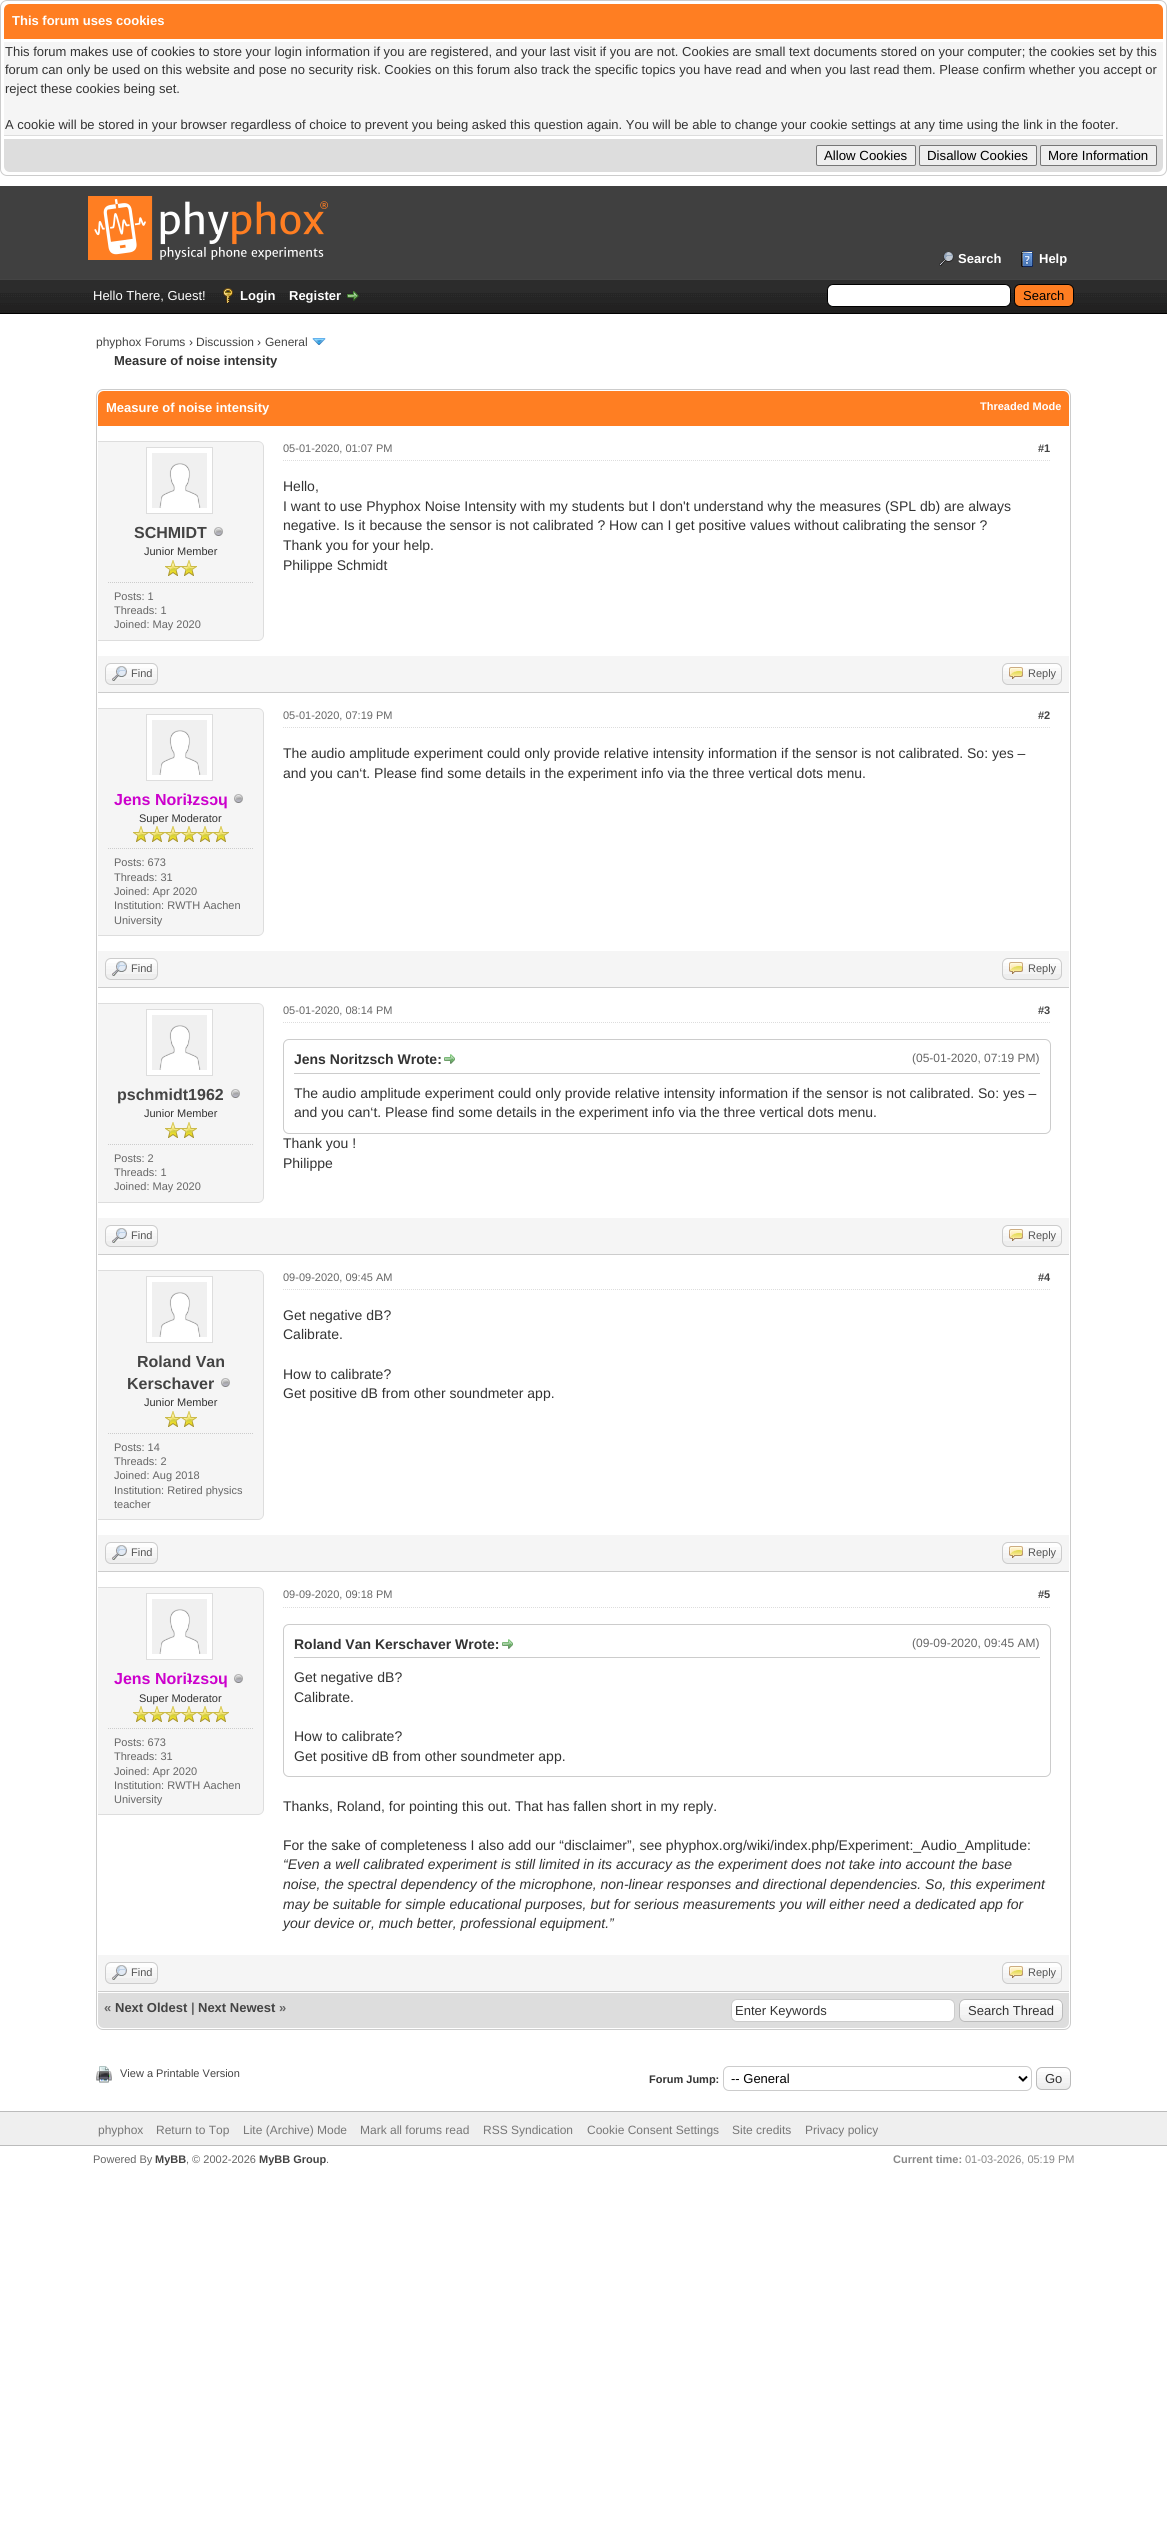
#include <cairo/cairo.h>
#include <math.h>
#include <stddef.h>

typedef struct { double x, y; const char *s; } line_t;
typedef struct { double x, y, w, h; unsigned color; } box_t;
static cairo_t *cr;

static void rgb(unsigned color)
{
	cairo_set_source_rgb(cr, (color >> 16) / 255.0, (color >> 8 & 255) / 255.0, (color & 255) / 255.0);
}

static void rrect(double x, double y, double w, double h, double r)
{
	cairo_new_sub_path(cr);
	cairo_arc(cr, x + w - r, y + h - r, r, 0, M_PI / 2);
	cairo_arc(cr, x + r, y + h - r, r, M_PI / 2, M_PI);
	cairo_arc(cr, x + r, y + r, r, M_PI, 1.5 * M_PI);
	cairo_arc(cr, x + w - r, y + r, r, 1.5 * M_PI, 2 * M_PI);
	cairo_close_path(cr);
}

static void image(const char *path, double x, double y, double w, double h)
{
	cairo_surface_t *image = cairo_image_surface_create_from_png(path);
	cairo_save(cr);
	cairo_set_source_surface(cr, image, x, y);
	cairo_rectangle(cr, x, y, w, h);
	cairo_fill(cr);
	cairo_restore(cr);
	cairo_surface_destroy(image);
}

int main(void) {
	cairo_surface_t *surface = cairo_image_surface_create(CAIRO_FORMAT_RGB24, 1167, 2543);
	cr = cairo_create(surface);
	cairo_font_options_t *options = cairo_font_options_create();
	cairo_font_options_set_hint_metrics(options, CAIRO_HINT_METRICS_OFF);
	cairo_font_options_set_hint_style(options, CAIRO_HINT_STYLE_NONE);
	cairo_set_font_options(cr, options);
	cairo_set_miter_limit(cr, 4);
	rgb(0xffffff);
	cairo_paint(cr);
	rrect(0.5, 0.5, 1166, 175, 6.5);
	rgb(0xcccccc);
	cairo_set_line_width(cr, 1);
	cairo_stroke(cr);
	rgb(0xff7e22);
	cairo_new_path(cr);
	cairo_move_to(cr, 10, 4);
	cairo_line_to(cr, 1157, 4);
	cairo_curve_to(cr, 1160.5, 4, 1163, 6.5, 1163, 10);
	cairo_line_to(cr, 1163, 39);
	cairo_line_to(cr, 4, 39);
	cairo_line_to(cr, 4, 10);
	cairo_curve_to(cr, 4, 6.5, 6.5, 4, 10, 4);
	cairo_close_path(cr);
	cairo_fill(cr);
	rgb(0xf5f5f5);
	cairo_rectangle(cr, 4, 42, 1159, 93);
	cairo_fill(cr);
	rgb(0xdddddd);
	cairo_rectangle(cr, 4, 135, 1159, 1);
	cairo_fill(cr);
	cairo_new_path(cr);
	cairo_move_to(cr, 4, 138);
	cairo_line_to(cr, 1163, 138);
	cairo_line_to(cr, 1163, 166);
	cairo_curve_to(cr, 1163, 169.5, 1160.5, 172, 1157, 172);
	cairo_line_to(cr, 10, 172);
	cairo_curve_to(cr, 6.5, 172, 4, 169.5, 4, 166);
	cairo_close_path(cr);
	cairo_fill(cr);
	rgb(0xffffff);
	cairo_rectangle(cr, 4, 138, 1159, 1);
	cairo_fill(cr);
	rgb(0xefefef);
	rrect(816.5, 145.5, 99, 20, 1.5);
	cairo_fill_preserve(cr);
	rgb(0x767676);
	cairo_stroke(cr);
	rgb(0xefefef);
	rrect(919.5, 145.5, 117, 20, 1.5);
	cairo_fill_preserve(cr);
	rgb(0x767676);
	cairo_stroke(cr);
	rgb(0xefefef);
	rrect(1040.5, 145.5, 116, 20, 1.5);
	cairo_fill_preserve(cr);
	rgb(0x767676);
	cairo_stroke(cr);
	rgb(0x404040);
	cairo_rectangle(cr, 0, 186, 1167, 93);
	cairo_fill(cr);
	image("img/1.png", 88, 196, 240, 64);
	image("img/2.png", 939, 251, 15, 15);
	image("img/3.png", 1021, 251, 12, 16);
	image("img/4.png", 0, 280, 1167, 33);
	rgb(0x444444);
	cairo_rectangle(cr, 0, 279, 1167, 1);
	cairo_fill(cr);
	rgb(0x000000);
	cairo_rectangle(cr, 0, 313, 1167, 1);
	cairo_fill(cr);
	image("img/5.png", 223, 288, 10, 15);
	image("img/6.png", 347, 291, 12, 10);
	rgb(0xffffff);
	rrect(827.5, 284.5, 183, 22, 5.5);
	cairo_fill_preserve(cr);
	rgb(0x000000);
	cairo_stroke(cr);
	rgb(0xff7e22);
	rrect(1014.5, 284.5, 59, 22, 5.5);
	cairo_fill_preserve(cr);
	rgb(0x000000);
	cairo_stroke(cr);
	image("img/7.png", 312, 338, 14, 7);
	rrect(96.5, 389.5, 974, 1640, 6.5);
	rgb(0xcccccc);
	cairo_stroke(cr);
	rgb(0xff7e22);
	cairo_new_path(cr);
	cairo_move_to(cr, 104, 391);
	cairo_line_to(cr, 1063, 391);
	cairo_curve_to(cr, 1066.5, 391, 1069, 393.5, 1069, 397);
	cairo_line_to(cr, 1069, 426);
	cairo_line_to(cr, 98, 426);
	cairo_line_to(cr, 98, 397);
	cairo_curve_to(cr, 98, 393.5, 100.5, 391, 104, 391);
	cairo_close_path(cr);
	cairo_fill(cr);
	rgb(0xf5f5f5);
	cairo_new_path(cr);
	cairo_move_to(cr, 98, 441);
	cairo_line_to(cr, 258, 441);
	cairo_curve_to(cr, 261.5, 441, 264, 443.5, 264, 447);
	cairo_line_to(cr, 264, 635);
	cairo_curve_to(cr, 264, 638.5, 261.5, 641, 258, 641);
	cairo_line_to(cr, 98, 641);
	cairo_close_path(cr);
	cairo_fill(cr);
	rgb(0xdddddd);
	cairo_set_fill_rule(cr, CAIRO_FILL_RULE_EVEN_ODD);
	cairo_new_path(cr);
	cairo_move_to(cr, 98, 441);
	cairo_line_to(cr, 258, 441);
	cairo_curve_to(cr, 261, 441, 264, 444, 264, 447);
	cairo_line_to(cr, 264, 635);
	cairo_curve_to(cr, 264, 638, 261, 641, 258, 641);
	cairo_line_to(cr, 98, 641);
	cairo_close_path(cr);
	cairo_move_to(cr, 98, 442);
	cairo_line_to(cr, 258, 442);
	cairo_curve_to(cr, 261, 442, 263, 444, 263, 447);
	cairo_line_to(cr, 263, 635);
	cairo_curve_to(cr, 263, 638, 261, 640, 258, 640);
	cairo_line_to(cr, 98, 640);
	cairo_close_path(cr);
	cairo_fill(cr);
	rgb(0xffffff);
	cairo_rectangle(cr, 146.5, 447.5, 66, 66);
	cairo_fill_preserve(cr);
	rgb(0xdddddd);
	cairo_stroke(cr);
	image("img/8.png", 152, 453, 55, 55);
	image("img/9.png", 214, 527, 9, 9);
	image("img/10.png", 165, 560, 16, 16);
	image("img/10.png", 181, 560, 16, 16);
	cairo_new_path(cr);
	cairo_move_to(cr, 108, 582.5);
	cairo_line_to(cr, 253, 582.5);
	rgb(0xcccccc);
	cairo_set_dash(cr, (double[]){1, 1}, 2, 0);
	cairo_stroke(cr);
	cairo_new_path(cr);
	cairo_move_to(cr, 283, 460.5);
	cairo_line_to(cr, 1051, 460.5);
	rgb(0xdddddd);
	cairo_stroke(cr);
	rgb(0xf5f5f5);
	cairo_rectangle(cr, 98, 656, 971, 36);
	cairo_fill(cr);
	rgb(0xcccccc);
	cairo_rectangle(cr, 98, 692, 971, 1);
	cairo_fill(cr);
	rgb(0xeeeeee);
	rrect(105, 663, 53, 22, 6);
	cairo_fill(cr);
	image("img/11.png", 105, 664, 53, 15);
	rrect(105.5, 663.5, 52, 21, 5.5);
	rgb(0xcccccc);
	cairo_set_dash(cr, NULL, 0, 0);
	cairo_stroke(cr);
	image("img/12.png", 112, 666, 15, 15);
	rgb(0xeeeeee);
	rrect(1002, 663, 60, 22, 6);
	cairo_fill(cr);
	image("img/13.png", 1002, 664, 60, 15);
	rrect(1002.5, 663.5, 59, 21, 5.5);
	rgb(0xcccccc);
	cairo_stroke(cr);
	image("img/14.png", 1009, 667, 14, 12);
	cairo_new_path(cr);
	cairo_move_to(cr, 283, 727.5);
	cairo_line_to(cr, 1051, 727.5);
	rgb(0xdddddd);
	cairo_set_dash(cr, (double[]){1, 1}, 2, 0);
	cairo_stroke(cr);
	rgb(0xf5f5f5);
	cairo_new_path(cr);
	cairo_move_to(cr, 98, 708);
	cairo_line_to(cr, 258, 708);
	cairo_curve_to(cr, 261.5, 708, 264, 710.5, 264, 714);
	cairo_line_to(cr, 264, 930);
	cairo_curve_to(cr, 264, 933.5, 261.5, 936, 258, 936);
	cairo_line_to(cr, 98, 936);
	cairo_close_path(cr);
	cairo_fill(cr);
	rgb(0xdddddd);
	cairo_new_path(cr);
	cairo_move_to(cr, 98, 708);
	cairo_line_to(cr, 258, 708);
	cairo_curve_to(cr, 261, 708, 264, 711, 264, 714);
	cairo_line_to(cr, 264, 930);
	cairo_curve_to(cr, 264, 933, 261, 936, 258, 936);
	cairo_line_to(cr, 98, 936);
	cairo_close_path(cr);
	cairo_move_to(cr, 98, 709);
	cairo_line_to(cr, 258, 709);
	cairo_curve_to(cr, 261, 709, 263, 711, 263, 714);
	cairo_line_to(cr, 263, 930);
	cairo_curve_to(cr, 263, 933, 261, 935, 258, 935);
	cairo_line_to(cr, 98, 935);
	cairo_close_path(cr);
	cairo_fill(cr);
	rgb(0xffffff);
	cairo_rectangle(cr, 146.5, 714.5, 66, 66);
	cairo_fill_preserve(cr);
	rgb(0xdddddd);
	cairo_set_dash(cr, NULL, 0, 0);
	cairo_stroke(cr);
	image("img/15.png", 152, 720, 55, 55);
	image("img/9.png", 234, 794, 9, 9);
	image("img/10.png", 133, 826, 16, 16);
	image("img/10.png", 149, 826, 16, 16);
	image("img/10.png", 165, 826, 16, 16);
	image("img/10.png", 181, 826, 16, 16);
	image("img/10.png", 197, 826, 16, 16);
	image("img/10.png", 213, 826, 16, 16);
	cairo_new_path(cr);
	cairo_move_to(cr, 108, 848.5);
	cairo_line_to(cr, 253, 848.5);
	rgb(0xcccccc);
	cairo_set_dash(cr, (double[]){1, 1}, 2, 0);
	cairo_stroke(cr);
	rgb(0xf5f5f5);
	cairo_rectangle(cr, 98, 951, 971, 36);
	cairo_fill(cr);
	rgb(0xcccccc);
	cairo_rectangle(cr, 98, 987, 971, 1);
	cairo_fill(cr);
	rgb(0xeeeeee);
	rrect(105, 958, 53, 22, 6);
	cairo_fill(cr);
	image("img/11.png", 105, 959, 53, 15);
	rrect(105.5, 958.5, 52, 21, 5.5);
	rgb(0xcccccc);
	cairo_set_dash(cr, NULL, 0, 0);
	cairo_stroke(cr);
	image("img/12.png", 112, 961, 15, 15);
	rgb(0xeeeeee);
	rrect(1002, 958, 60, 22, 6);
	cairo_fill(cr);
	image("img/13.png", 1002, 959, 60, 15);
	rrect(1002.5, 958.5, 59, 21, 5.5);
	rgb(0xcccccc);
	cairo_stroke(cr);
	image("img/14.png", 1009, 962, 14, 12);
	rgb(0xf5f5f5);
	cairo_new_path(cr);
	cairo_move_to(cr, 98, 1003);
	cairo_line_to(cr, 258, 1003);
	cairo_curve_to(cr, 261.5, 1003, 264, 1005.5, 264, 1009);
	cairo_line_to(cr, 264, 1197);
	cairo_curve_to(cr, 264, 1200.5, 261.5, 1203, 258, 1203);
	cairo_line_to(cr, 98, 1203);
	cairo_close_path(cr);
	cairo_fill(cr);
	rgb(0xdddddd);
	cairo_new_path(cr);
	cairo_move_to(cr, 98, 1003);
	cairo_line_to(cr, 258, 1003);
	cairo_curve_to(cr, 261, 1003, 264, 1006, 264, 1009);
	cairo_line_to(cr, 264, 1197);
	cairo_curve_to(cr, 264, 1200, 261, 1203, 258, 1203);
	cairo_line_to(cr, 98, 1203);
	cairo_close_path(cr);
	cairo_move_to(cr, 98, 1004);
	cairo_line_to(cr, 258, 1004);
	cairo_curve_to(cr, 261, 1004, 263, 1006, 263, 1009);
	cairo_line_to(cr, 263, 1197);
	cairo_curve_to(cr, 263, 1200, 261, 1202, 258, 1202);
	cairo_line_to(cr, 98, 1202);
	cairo_close_path(cr);
	cairo_fill(cr);
	rgb(0xffffff);
	cairo_rectangle(cr, 146.5, 1009.5, 66, 66);
	cairo_fill_preserve(cr);
	rgb(0xdddddd);
	cairo_stroke(cr);
	image("img/8.png", 152, 1015, 55, 55);
	image("img/9.png", 231, 1089, 9, 9);
	image("img/10.png", 165, 1122, 16, 16);
	image("img/10.png", 181, 1122, 16, 16);
	cairo_new_path(cr);
	cairo_move_to(cr, 108, 1144.5);
	cairo_line_to(cr, 253, 1144.5);
	rgb(0xcccccc);
	cairo_set_dash(cr, (double[]){1, 1}, 2, 0);
	cairo_stroke(cr);
	cairo_new_path(cr);
	cairo_move_to(cr, 283, 1022.5);
	cairo_line_to(cr, 1051, 1022.5);
	rgb(0xdddddd);
	cairo_stroke(cr);
	rrect(283.5, 1039.5, 767, 94, 5.5);
	rgb(0xcccccc);
	cairo_set_dash(cr, NULL, 0, 0);
	cairo_stroke(cr);
	cairo_rectangle(cr, 294, 1073, 746, 1);
	cairo_fill(cr);
	image("img/16.png", 444, 1054, 11, 10);
	rgb(0xf5f5f5);
	cairo_rectangle(cr, 98, 1218, 971, 36);
	cairo_fill(cr);
	rgb(0xcccccc);
	cairo_rectangle(cr, 98, 1254, 971, 1);
	cairo_fill(cr);
	rgb(0xeeeeee);
	rrect(105, 1225, 53, 22, 6);
	cairo_fill(cr);
	image("img/11.png", 105, 1226, 53, 15);
	rrect(105.5, 1225.5, 52, 21, 5.5);
	rgb(0xcccccc);
	cairo_stroke(cr);
	image("img/12.png", 112, 1228, 15, 15);
	rgb(0xeeeeee);
	rrect(1002, 1225, 60, 22, 6);
	cairo_fill(cr);
	image("img/13.png", 1002, 1226, 60, 15);
	rrect(1002.5, 1225.5, 59, 21, 5.5);
	rgb(0xcccccc);
	cairo_stroke(cr);
	image("img/14.png", 1009, 1229, 14, 12);
	cairo_new_path(cr);
	cairo_move_to(cr, 283, 1289.5);
	cairo_line_to(cr, 1051, 1289.5);
	rgb(0xdddddd);
	cairo_set_dash(cr, (double[]){1, 1}, 2, 0);
	cairo_stroke(cr);
	rgb(0xf5f5f5);
	cairo_new_path(cr);
	cairo_move_to(cr, 98, 1270);
	cairo_line_to(cr, 258, 1270);
	cairo_curve_to(cr, 261.5, 1270, 264, 1272.5, 264, 1276);
	cairo_line_to(cr, 264, 1514);
	cairo_curve_to(cr, 264, 1517.5, 261.5, 1520, 258, 1520);
	cairo_line_to(cr, 98, 1520);
	cairo_close_path(cr);
	cairo_fill(cr);
	rgb(0xdddddd);
	cairo_new_path(cr);
	cairo_move_to(cr, 98, 1270);
	cairo_line_to(cr, 258, 1270);
	cairo_curve_to(cr, 261, 1270, 264, 1273, 264, 1276);
	cairo_line_to(cr, 264, 1514);
	cairo_curve_to(cr, 264, 1517, 261, 1520, 258, 1520);
	cairo_line_to(cr, 98, 1520);
	cairo_close_path(cr);
	cairo_move_to(cr, 98, 1271);
	cairo_line_to(cr, 258, 1271);
	cairo_curve_to(cr, 261, 1271, 263, 1273, 263, 1276);
	cairo_line_to(cr, 263, 1514);
	cairo_curve_to(cr, 263, 1517, 261, 1519, 258, 1519);
	cairo_line_to(cr, 98, 1519);
	cairo_close_path(cr);
	cairo_fill(cr);
	rgb(0xffffff);
	cairo_rectangle(cr, 146.5, 1276.5, 66, 66);
	cairo_fill_preserve(cr);
	rgb(0xdddddd);
	cairo_set_dash(cr, NULL, 0, 0);
	cairo_stroke(cr);
	image("img/8.png", 152, 1282, 55, 55);
	image("img/9.png", 221, 1378, 9, 9);
	image("img/10.png", 165, 1411, 16, 16);
	image("img/10.png", 181, 1411, 16, 16);
	cairo_new_path(cr);
	cairo_move_to(cr, 108, 1433.5);
	cairo_line_to(cr, 253, 1433.5);
	rgb(0xcccccc);
	cairo_set_dash(cr, (double[]){1, 1}, 2, 0);
	cairo_stroke(cr);
	rgb(0xf5f5f5);
	cairo_rectangle(cr, 98, 1535, 971, 36);
	cairo_fill(cr);
	rgb(0xcccccc);
	cairo_rectangle(cr, 98, 1571, 971, 1);
	cairo_fill(cr);
	rgb(0xeeeeee);
	rrect(105, 1542, 53, 22, 6);
	cairo_fill(cr);
	image("img/11.png", 105, 1543, 53, 15);
	rrect(105.5, 1542.5, 52, 21, 5.5);
	rgb(0xcccccc);
	cairo_set_dash(cr, NULL, 0, 0);
	cairo_stroke(cr);
	image("img/12.png", 112, 1545, 15, 15);
	rgb(0xeeeeee);
	rrect(1002, 1542, 60, 22, 6);
	cairo_fill(cr);
	image("img/13.png", 1002, 1543, 60, 15);
	rrect(1002.5, 1542.5, 59, 21, 5.5);
	rgb(0xcccccc);
	cairo_stroke(cr);
	image("img/14.png", 1009, 1546, 14, 12);
	rgb(0xf5f5f5);
	cairo_new_path(cr);
	cairo_move_to(cr, 98, 1587);
	cairo_line_to(cr, 258, 1587);
	cairo_curve_to(cr, 261.5, 1587, 264, 1589.5, 264, 1593);
	cairo_line_to(cr, 264, 1809);
	cairo_curve_to(cr, 264, 1812.5, 261.5, 1815, 258, 1815);
	cairo_line_to(cr, 98, 1815);
	cairo_close_path(cr);
	cairo_fill(cr);
	rgb(0xdddddd);
	cairo_new_path(cr);
	cairo_move_to(cr, 98, 1587);
	cairo_line_to(cr, 258, 1587);
	cairo_curve_to(cr, 261, 1587, 264, 1590, 264, 1593);
	cairo_line_to(cr, 264, 1809);
	cairo_curve_to(cr, 264, 1812, 261, 1815, 258, 1815);
	cairo_line_to(cr, 98, 1815);
	cairo_close_path(cr);
	cairo_move_to(cr, 98, 1588);
	cairo_line_to(cr, 258, 1588);
	cairo_curve_to(cr, 261, 1588, 263, 1590, 263, 1593);
	cairo_line_to(cr, 263, 1809);
	cairo_curve_to(cr, 263, 1812, 261, 1814, 258, 1814);
	cairo_line_to(cr, 98, 1814);
	cairo_close_path(cr);
	cairo_fill(cr);
	rgb(0xffffff);
	cairo_rectangle(cr, 146.5, 1593.5, 66, 66);
	cairo_fill_preserve(cr);
	rgb(0xdddddd);
	cairo_stroke(cr);
	image("img/8.png", 152, 1599, 55, 55);
	image("img/9.png", 234, 1674, 9, 9);
	image("img/10.png", 133, 1706, 16, 16);
	image("img/10.png", 149, 1706, 16, 16);
	image("img/10.png", 165, 1706, 16, 16);
	image("img/10.png", 181, 1706, 16, 16);
	image("img/10.png", 197, 1706, 16, 16);
	image("img/10.png", 213, 1706, 16, 16);
	cairo_new_path(cr);
	cairo_move_to(cr, 108, 1728.5);
	cairo_line_to(cr, 253, 1728.5);
	rgb(0xcccccc);
	cairo_set_dash(cr, (double[]){1, 1}, 2, 0);
	cairo_stroke(cr);
	cairo_new_path(cr);
	cairo_move_to(cr, 283, 1607.5);
	cairo_line_to(cr, 1051, 1607.5);
	rgb(0xdddddd);
	cairo_stroke(cr);
	rrect(283.5, 1624.5, 767, 152, 5.5);
	rgb(0xcccccc);
	cairo_set_dash(cr, NULL, 0, 0);
	cairo_stroke(cr);
	cairo_rectangle(cr, 294, 1657, 746, 1);
	cairo_fill(cr);
	image("img/16.png", 502, 1639, 11, 10);
	rgb(0xf5f5f5);
	cairo_rectangle(cr, 98, 1955, 971, 36);
	cairo_fill(cr);
	rgb(0xcccccc);
	cairo_rectangle(cr, 98, 1991, 971, 1);
	cairo_fill(cr);
	rgb(0xeeeeee);
	rrect(105, 1962, 53, 22, 6);
	cairo_fill(cr);
	image("img/11.png", 105, 1963, 53, 15);
	rrect(105.5, 1962.5, 52, 21, 5.5);
	rgb(0xcccccc);
	cairo_stroke(cr);
	image("img/12.png", 112, 1965, 15, 15);
	rgb(0xeeeeee);
	rrect(1002, 1962, 60, 22, 6);
	cairo_fill(cr);
	image("img/13.png", 1002, 1963, 60, 15);
	rrect(1002.5, 1962.5, 59, 21, 5.5);
	rgb(0xcccccc);
	cairo_stroke(cr);
	image("img/14.png", 1009, 1966, 14, 12);
	rgb(0xdddddd);
	cairo_new_path(cr);
	cairo_move_to(cr, 98, 1992);
	cairo_line_to(cr, 1069, 1992);
	cairo_line_to(cr, 1069, 2022);
	cairo_curve_to(cr, 1069, 2025.5, 1066.5, 2028, 1063, 2028);
	cairo_line_to(cr, 104, 2028);
	cairo_curve_to(cr, 100.5, 2028, 98, 2025.5, 98, 2022);
	cairo_close_path(cr);
	cairo_fill(cr);
	rgb(0xffffff);
	cairo_rectangle(cr, 98, 1992, 971, 1);
	cairo_fill(cr);
	rrect(731.5, 1999.5, 223, 22, 5.5);
	cairo_fill_preserve(cr);
	rgb(0xcccccc);
	cairo_stroke(cr);
	rgb(0xeeeeee);
	rrect(959, 1999, 104, 23, 6);
	cairo_fill(cr);
	image("img/17.png", 959, 2000, 104, 18);
	rrect(959.5, 1999.5, 103, 22, 5.5);
	rgb(0xbbbbbb);
	cairo_stroke(cr);
	image("img/18.png", 96, 2066, 16, 17);
	rrect(723.5, 2066.5, 308, 24, 5.5);
	rgb(0xcccccc);
	cairo_stroke(cr);
	cairo_new_path(cr);
	cairo_move_to(cr, 1019, 2076.5);
	cairo_line_to(cr, 1023, 2080.5);
	cairo_line_to(cr, 1027, 2076.5);
	rgb(0x000000);
	cairo_set_line_width(cr, 2);
	cairo_stroke(cr);
	image("img/19.png", 1036, 2068, 35, 22);
	rrect(1036.5, 2067.5, 34, 22, 5.5);
	rgb(0xbbbbbb);
	cairo_set_line_width(cr, 1);
	cairo_stroke(cr);
	{
		static const box_t items[] = {
			{0, 2112, 1167, 33, 0xefefef},
			{0, 2111, 1167, 1, 0xbbbbbb},
			{0, 2145, 1167, 1, 0xbbbbbb},
		};
		for (size_t i = 0; i < sizeof items / sizeof *items; i++) {
			rgb(items[i].color);
			cairo_rectangle(cr, items[i].x, items[i].y, items[i].w, items[i].h);
			cairo_fill(cr);
		}
	}
	cairo_select_font_face(cr, "Liberation Sans", CAIRO_FONT_SLANT_NORMAL, CAIRO_FONT_WEIGHT_BOLD);
	cairo_set_font_size(cr, 13);
	rgb(0xffffff);
	cairo_move_to(cr, 12, 25);
	cairo_show_text(cr, "This forum uses cookies");
	cairo_select_font_face(cr, "Liberation Sans", CAIRO_FONT_SLANT_NORMAL, CAIRO_FONT_WEIGHT_NORMAL);
	rgb(0x333333);
	{
		static const line_t items[] = {
			{5, 56, "This forum makes use of cookies to store your login information if you are registered, and your last visit if you are not. Cookies are small text documents stored on your computer; the cookies set by this"},
			{5, 74, "forum can only be used on this website and pose no security risk. Cookies on this forum also track the specific topics you have read and when you last read them. Please confirm whether you accept or"},
			{5, 93, "reject these cookies being set."},
			{5, 129, "A cookie will be stored in your browser regardless of choice to prevent you being asked this question again. You will be able to change your cookie settings at any time using the link in the footer."},
		};
		for (size_t i = 0; i < sizeof items / sizeof *items; i++) {
			cairo_move_to(cr, items[i].x, items[i].y);
			cairo_show_text(cr, items[i].s);
		}
	}
	cairo_set_font_size(cr, 13.25);
	rgb(0x000000);
	{
		static const line_t items[] = {
			{824, 160, "Allow Cookies"},
			{927, 160, "Disallow Cookies"},
			{1048, 160, "More Information"},
		};
		for (size_t i = 0; i < sizeof items / sizeof *items; i++) {
			cairo_move_to(cr, items[i].x, items[i].y);
			cairo_show_text(cr, items[i].s);
		}
	}
	cairo_select_font_face(cr, "Liberation Sans", CAIRO_FONT_SLANT_NORMAL, CAIRO_FONT_WEIGHT_BOLD);
	cairo_set_font_size(cr, 13);
	rgb(0xffffff);
	cairo_move_to(cr, 958, 263);
	cairo_show_text(cr, "Search");
	cairo_move_to(cr, 1039, 263);
	cairo_show_text(cr, "Help");
	cairo_select_font_face(cr, "Liberation Sans", CAIRO_FONT_SLANT_NORMAL, CAIRO_FONT_WEIGHT_NORMAL);
	cairo_move_to(cr, 93, 300);
	cairo_show_text(cr, "Hello There, Guest!");
	cairo_select_font_face(cr, "Liberation Sans", CAIRO_FONT_SLANT_NORMAL, CAIRO_FONT_WEIGHT_BOLD);
	cairo_move_to(cr, 240, 300);
	cairo_show_text(cr, "Login");
	cairo_move_to(cr, 289, 300);
	cairo_show_text(cr, "Register");
	cairo_select_font_face(cr, "Liberation Sans", CAIRO_FONT_SLANT_NORMAL, CAIRO_FONT_WEIGHT_NORMAL);
	rgb(0x000000);
	cairo_move_to(cr, 1023, 300);
	cairo_show_text(cr, "Search");
	cairo_set_font_size(cr, 12);
	rgb(0x444444);
	cairo_move_to(cr, 96, 346);
	cairo_show_text(cr, "phyphox Forums");
	rgb(0x333333);
	cairo_move_to(cr, 189, 346);
	cairo_show_text(cr, "›");
	rgb(0x444444);
	cairo_move_to(cr, 196, 346);
	cairo_show_text(cr, "Discussion");
	rgb(0x333333);
	cairo_move_to(cr, 257, 346);
	cairo_show_text(cr, "›");
	rgb(0x444444);
	cairo_move_to(cr, 265, 346);
	cairo_show_text(cr, "General");
	cairo_select_font_face(cr, "Liberation Sans", CAIRO_FONT_SLANT_NORMAL, CAIRO_FONT_WEIGHT_BOLD);
	cairo_set_font_size(cr, 13);
	rgb(0x333333);
	cairo_move_to(cr, 114, 365);
	cairo_show_text(cr, "Measure of noise intensity");
	rgb(0xffffff);
	cairo_move_to(cr, 106, 412);
	cairo_show_text(cr, "Measure of noise intensity");
	cairo_set_font_size(cr, 11);
	cairo_move_to(cr, 980, 410);
	cairo_show_text(cr, "Threaded Mode");
	cairo_set_font_size(cr, 16);
	rgb(0x444444);
	cairo_move_to(cr, 134, 538);
	cairo_show_text(cr, "SCHMIDT");
	cairo_select_font_face(cr, "Liberation Sans", CAIRO_FONT_SLANT_NORMAL, CAIRO_FONT_WEIGHT_NORMAL);
	cairo_set_font_size(cr, 11);
	rgb(0x333333);
	cairo_move_to(cr, 144, 555);
	cairo_show_text(cr, "Junior Member");
	rgb(0x666666);
	{
		static const line_t items[] = {
			{114, 600, "Posts: 1"},
			{114, 614, "Threads: 1"},
			{114, 628, "Joined: May 2020"},
			{283, 452, "05-01-2020, 01:07 PM"},
		};
		for (size_t i = 0; i < sizeof items / sizeof *items; i++) {
			cairo_move_to(cr, items[i].x, items[i].y);
			cairo_show_text(cr, items[i].s);
		}
	}
	cairo_select_font_face(cr, "Liberation Sans", CAIRO_FONT_SLANT_NORMAL, CAIRO_FONT_WEIGHT_BOLD);
	rgb(0x444444);
	cairo_move_to(cr, 1038, 452);
	cairo_show_text(cr, "#1");
	cairo_select_font_face(cr, "Liberation Sans", CAIRO_FONT_SLANT_NORMAL, CAIRO_FONT_WEIGHT_NORMAL);
	cairo_set_font_size(cr, 14);
	rgb(0x333333);
	{
		static const line_t items[] = {
			{283, 491, "Hello,"},
			{283, 511, "I want to use Phyphox Noise Intensity with my students but I don't understand why the measures (SPL db) are always"},
			{283, 530, "negative. Is it because the sensor is not calibrated ? How can I get positive values without calibrating the sensor ?"},
			{283, 550, "Thank you for your help."},
			{283, 570, "Philippe Schmidt"},
		};
		for (size_t i = 0; i < sizeof items / sizeof *items; i++) {
			cairo_move_to(cr, items[i].x, items[i].y);
			cairo_show_text(cr, items[i].s);
		}
	}
	cairo_set_font_size(cr, 11);
	rgb(0x555555);
	cairo_move_to(cr, 131, 677);
	cairo_show_text(cr, "Find");
	cairo_move_to(cr, 1028, 677);
	cairo_show_text(cr, "Reply");
	rgb(0x666666);
	cairo_move_to(cr, 283, 719);
	cairo_show_text(cr, "05-01-2020, 07:19 PM");
	cairo_select_font_face(cr, "Liberation Sans", CAIRO_FONT_SLANT_NORMAL, CAIRO_FONT_WEIGHT_BOLD);
	rgb(0x444444);
	cairo_move_to(cr, 1038, 719);
	cairo_show_text(cr, "#2");
	cairo_select_font_face(cr, "Liberation Sans", CAIRO_FONT_SLANT_NORMAL, CAIRO_FONT_WEIGHT_NORMAL);
	cairo_set_font_size(cr, 14);
	rgb(0x333333);
	cairo_move_to(cr, 283, 758);
	cairo_show_text(cr, "The audio amplitude experiment could only provide relative intensity information if the sensor is not calibrated. So: yes –");
	cairo_move_to(cr, 283, 778);
	cairo_show_text(cr, "and you can‘t. Please find some details in the experiment info via the three vertical dots menu.");
	cairo_select_font_face(cr, "Liberation Sans", CAIRO_FONT_SLANT_NORMAL, CAIRO_FONT_WEIGHT_BOLD);
	cairo_set_font_size(cr, 16);
	rgb(0xcc00cc);
	cairo_move_to(cr, 114, 805);
	cairo_show_text(cr, "Jens Noriʇzsɔɥ");
	cairo_select_font_face(cr, "Liberation Sans", CAIRO_FONT_SLANT_NORMAL, CAIRO_FONT_WEIGHT_NORMAL);
	cairo_set_font_size(cr, 11);
	rgb(0x333333);
	cairo_move_to(cr, 139, 822);
	cairo_show_text(cr, "Super Moderator");
	rgb(0x666666);
	{
		static const line_t items[] = {
			{114, 866, "Posts: 673"},
			{114, 881, "Threads: 31"},
			{114, 895, "Joined: Apr 2020"},
			{114, 909, "Institution: RWTH Aachen"},
			{114, 924, "University"},
		};
		for (size_t i = 0; i < sizeof items / sizeof *items; i++) {
			cairo_move_to(cr, items[i].x, items[i].y);
			cairo_show_text(cr, items[i].s);
		}
	}
	rgb(0x555555);
	cairo_move_to(cr, 131, 972);
	cairo_show_text(cr, "Find");
	cairo_move_to(cr, 1028, 972);
	cairo_show_text(cr, "Reply");
	cairo_select_font_face(cr, "Liberation Sans", CAIRO_FONT_SLANT_NORMAL, CAIRO_FONT_WEIGHT_BOLD);
	cairo_set_font_size(cr, 16);
	rgb(0x444444);
	cairo_move_to(cr, 117, 1100);
	cairo_show_text(cr, "pschmidt1962");
	cairo_select_font_face(cr, "Liberation Sans", CAIRO_FONT_SLANT_NORMAL, CAIRO_FONT_WEIGHT_NORMAL);
	cairo_set_font_size(cr, 11);
	rgb(0x333333);
	cairo_move_to(cr, 144, 1117);
	cairo_show_text(cr, "Junior Member");
	rgb(0x666666);
	{
		static const line_t items[] = {
			{114, 1162, "Posts: 2"},
			{114, 1176, "Threads: 1"},
			{114, 1190, "Joined: May 2020"},
			{283, 1014, "05-01-2020, 08:14 PM"},
		};
		for (size_t i = 0; i < sizeof items / sizeof *items; i++) {
			cairo_move_to(cr, items[i].x, items[i].y);
			cairo_show_text(cr, items[i].s);
		}
	}
	cairo_select_font_face(cr, "Liberation Sans", CAIRO_FONT_SLANT_NORMAL, CAIRO_FONT_WEIGHT_BOLD);
	rgb(0x444444);
	cairo_move_to(cr, 1038, 1014);
	cairo_show_text(cr, "#3");
	cairo_set_font_size(cr, 14);
	rgb(0x333333);
	cairo_move_to(cr, 294, 1064);
	cairo_show_text(cr, "Jens Noritzsch Wrote:");
	cairo_select_font_face(cr, "Liberation Sans", CAIRO_FONT_SLANT_NORMAL, CAIRO_FONT_WEIGHT_NORMAL);
	cairo_set_font_size(cr, 12);
	rgb(0x666666);
	cairo_move_to(cr, 912, 1062);
	cairo_show_text(cr, "(05-01-2020, 07:19 PM)");
	cairo_set_font_size(cr, 14);
	rgb(0x333333);
	{
		static const line_t items[] = {
			{294, 1098, "The audio amplitude experiment could only provide relative intensity information if the sensor is not calibrated. So: yes –"},
			{294, 1117, "and you can‘t. Please find some details in the experiment info via the three vertical dots menu."},
			{283, 1148, "Thank you !"},
			{283, 1168, "Philippe"},
		};
		for (size_t i = 0; i < sizeof items / sizeof *items; i++) {
			cairo_move_to(cr, items[i].x, items[i].y);
			cairo_show_text(cr, items[i].s);
		}
	}
	cairo_set_font_size(cr, 11);
	rgb(0x555555);
	cairo_move_to(cr, 131, 1239);
	cairo_show_text(cr, "Find");
	cairo_move_to(cr, 1028, 1239);
	cairo_show_text(cr, "Reply");
	rgb(0x666666);
	cairo_move_to(cr, 283, 1281);
	cairo_show_text(cr, "09-09-2020, 09:45 AM");
	cairo_select_font_face(cr, "Liberation Sans", CAIRO_FONT_SLANT_NORMAL, CAIRO_FONT_WEIGHT_BOLD);
	rgb(0x444444);
	cairo_move_to(cr, 1038, 1281);
	cairo_show_text(cr, "#4");
	cairo_select_font_face(cr, "Liberation Sans", CAIRO_FONT_SLANT_NORMAL, CAIRO_FONT_WEIGHT_NORMAL);
	cairo_set_font_size(cr, 14);
	rgb(0x333333);
	{
		static const line_t items[] = {
			{283, 1320, "Get negative dB?"},
			{283, 1339, "Calibrate."},
			{283, 1379, "How to calibrate?"},
			{283, 1398, "Get positive dB from other soundmeter app."},
		};
		for (size_t i = 0; i < sizeof items / sizeof *items; i++) {
			cairo_move_to(cr, items[i].x, items[i].y);
			cairo_show_text(cr, items[i].s);
		}
	}
	cairo_select_font_face(cr, "Liberation Sans", CAIRO_FONT_SLANT_NORMAL, CAIRO_FONT_WEIGHT_BOLD);
	cairo_set_font_size(cr, 16);
	rgb(0x444444);
	cairo_move_to(cr, 137, 1367);
	cairo_show_text(cr, "Roland Van");
	cairo_move_to(cr, 127, 1389);
	cairo_show_text(cr, "Kerschaver");
	cairo_select_font_face(cr, "Liberation Sans", CAIRO_FONT_SLANT_NORMAL, CAIRO_FONT_WEIGHT_NORMAL);
	cairo_set_font_size(cr, 11);
	rgb(0x333333);
	cairo_move_to(cr, 144, 1406);
	cairo_show_text(cr, "Junior Member");
	rgb(0x666666);
	{
		static const line_t items[] = {
			{114, 1451, "Posts: 14"},
			{114, 1465, "Threads: 2"},
			{114, 1479, "Joined: Aug 2018"},
			{114, 1494, "Institution: Retired physics"},
			{114, 1508, "teacher"},
		};
		for (size_t i = 0; i < sizeof items / sizeof *items; i++) {
			cairo_move_to(cr, items[i].x, items[i].y);
			cairo_show_text(cr, items[i].s);
		}
	}
	rgb(0x555555);
	cairo_move_to(cr, 131, 1556);
	cairo_show_text(cr, "Find");
	cairo_move_to(cr, 1028, 1556);
	cairo_show_text(cr, "Reply");
	cairo_select_font_face(cr, "Liberation Sans", CAIRO_FONT_SLANT_NORMAL, CAIRO_FONT_WEIGHT_BOLD);
	cairo_set_font_size(cr, 16);
	rgb(0xcc00cc);
	cairo_move_to(cr, 114, 1684);
	cairo_show_text(cr, "Jens Noriʇzsɔɥ");
	cairo_select_font_face(cr, "Liberation Sans", CAIRO_FONT_SLANT_NORMAL, CAIRO_FONT_WEIGHT_NORMAL);
	cairo_set_font_size(cr, 11);
	rgb(0x333333);
	cairo_move_to(cr, 139, 1702);
	cairo_show_text(cr, "Super Moderator");
	rgb(0x666666);
	{
		static const line_t items[] = {
			{114, 1746, "Posts: 673"},
			{114, 1760, "Threads: 31"},
			{114, 1775, "Joined: Apr 2020"},
			{114, 1789, "Institution: RWTH Aachen"},
			{114, 1803, "University"},
			{283, 1598, "09-09-2020, 09:18 PM"},
		};
		for (size_t i = 0; i < sizeof items / sizeof *items; i++) {
			cairo_move_to(cr, items[i].x, items[i].y);
			cairo_show_text(cr, items[i].s);
		}
	}
	cairo_select_font_face(cr, "Liberation Sans", CAIRO_FONT_SLANT_NORMAL, CAIRO_FONT_WEIGHT_BOLD);
	rgb(0x444444);
	cairo_move_to(cr, 1038, 1598);
	cairo_show_text(cr, "#5");
	cairo_set_font_size(cr, 14);
	rgb(0x333333);
	cairo_move_to(cr, 294, 1649);
	cairo_show_text(cr, "Roland Van Kerschaver Wrote:");
	cairo_select_font_face(cr, "Liberation Sans", CAIRO_FONT_SLANT_NORMAL, CAIRO_FONT_WEIGHT_NORMAL);
	cairo_set_font_size(cr, 12);
	rgb(0x666666);
	cairo_move_to(cr, 912, 1647);
	cairo_show_text(cr, "(09-09-2020, 09:45 AM)");
	cairo_set_font_size(cr, 14);
	rgb(0x333333);
	{
		static const line_t items[] = {
			{294, 1682, "Get negative dB?"},
			{294, 1702, "Calibrate."},
			{294, 1741, "How to calibrate?"},
			{294, 1761, "Get positive dB from other soundmeter app."},
			{283, 1811, "Thanks, Roland, for pointing this out. That has fallen short in my reply."},
			{283, 1850, "For the sake of completeness I also add our “disclaimer”, see phyphox.org/wiki/index.php/Experiment:_Audio_Amplitude:"},
		};
		for (size_t i = 0; i < sizeof items / sizeof *items; i++) {
			cairo_move_to(cr, items[i].x, items[i].y);
			cairo_show_text(cr, items[i].s);
		}
	}
	cairo_select_font_face(cr, "Liberation Sans", CAIRO_FONT_SLANT_ITALIC, CAIRO_FONT_WEIGHT_NORMAL);
	{
		static const line_t items[] = {
			{283, 1869, "“Even a well calibrated experiment is still limited in its accuracy as the experiment does not take into account the base"},
			{283, 1889, "noise, the spectral dependency of the microphone, non-linear responses and directional dependencies. So, this experiment"},
			{283, 1909, "may be suitable for simple educational purposes, but for serious measurements you will either need a dedicated app for"},
			{283, 1928, "your device or, much better, professional equipment.”"},
		};
		for (size_t i = 0; i < sizeof items / sizeof *items; i++) {
			cairo_move_to(cr, items[i].x, items[i].y);
			cairo_show_text(cr, items[i].s);
		}
	}
	cairo_select_font_face(cr, "Liberation Sans", CAIRO_FONT_SLANT_NORMAL, CAIRO_FONT_WEIGHT_NORMAL);
	cairo_set_font_size(cr, 11);
	rgb(0x555555);
	cairo_move_to(cr, 131, 1976);
	cairo_show_text(cr, "Find");
	cairo_move_to(cr, 1028, 1976);
	cairo_show_text(cr, "Reply");
	cairo_select_font_face(cr, "Liberation Sans", CAIRO_FONT_SLANT_NORMAL, CAIRO_FONT_WEIGHT_BOLD);
	cairo_set_font_size(cr, 13);
	rgb(0x666666);
	cairo_move_to(cr, 104, 2012);
	cairo_show_text(cr, "«");
	rgb(0x444444);
	cairo_move_to(cr, 115, 2012);
	cairo_show_text(cr, "Next Oldest");
	rgb(0x666666);
	cairo_move_to(cr, 191, 2012);
	cairo_show_text(cr, "|");
	rgb(0x444444);
	cairo_move_to(cr, 198, 2012);
	cairo_show_text(cr, "Next Newest");
	rgb(0x666666);
	cairo_move_to(cr, 279, 2012);
	cairo_show_text(cr, "»");
	cairo_select_font_face(cr, "Liberation Sans", CAIRO_FONT_SLANT_NORMAL, CAIRO_FONT_WEIGHT_NORMAL);
	rgb(0x333333);
	cairo_move_to(cr, 735, 2015);
	cairo_show_text(cr, "Enter Keywords");
	cairo_move_to(cr, 968, 2015);
	cairo_show_text(cr, "Search Thread");
	cairo_set_font_size(cr, 11);
	rgb(0x444444);
	cairo_move_to(cr, 120, 2077);
	cairo_show_text(cr, "View a Printable Version");
	cairo_select_font_face(cr, "Liberation Sans", CAIRO_FONT_SLANT_NORMAL, CAIRO_FONT_WEIGHT_BOLD);
	rgb(0x333333);
	cairo_move_to(cr, 649, 2083);
	cairo_show_text(cr, "Forum Jump:");
	cairo_select_font_face(cr, "Liberation Sans", CAIRO_FONT_SLANT_NORMAL, CAIRO_FONT_WEIGHT_NORMAL);
	cairo_set_font_size(cr, 13);
	rgb(0x000000);
	cairo_move_to(cr, 731, 2083);
	cairo_show_text(cr, "-- General");
	rgb(0x333333);
	cairo_move_to(cr, 1045, 2083);
	cairo_show_text(cr, "Go");
	cairo_set_font_size(cr, 12);
	rgb(0x777777);
	{
		static const line_t items[] = {
			{98, 2134, "phyphox"},
			{156, 2134, "Return to Top"},
			{243, 2134, "Lite (Archive) Mode"},
			{360, 2134, "Mark all forums read"},
			{483, 2134, "RSS Syndication"},
			{587, 2134, "Cookie Consent Settings"},
			{732, 2134, "Site credits"},
			{805, 2134, "Privacy policy"},
		};
		for (size_t i = 0; i < sizeof items / sizeof *items; i++) {
			cairo_move_to(cr, items[i].x, items[i].y);
			cairo_show_text(cr, items[i].s);
		}
	}
	cairo_set_font_size(cr, 11);
	rgb(0x666666);
	cairo_move_to(cr, 93, 2163);
	cairo_show_text(cr, "Powered By");
	cairo_select_font_face(cr, "Liberation Sans", CAIRO_FONT_SLANT_NORMAL, CAIRO_FONT_WEIGHT_BOLD);
	rgb(0x444444);
	cairo_move_to(cr, 155, 2163);
	cairo_show_text(cr, "MyBB");
	cairo_select_font_face(cr, "Liberation Sans", CAIRO_FONT_SLANT_NORMAL, CAIRO_FONT_WEIGHT_NORMAL);
	rgb(0x666666);
	cairo_move_to(cr, 186, 2163);
	cairo_show_text(cr, ", © 2002-2026");
	cairo_select_font_face(cr, "Liberation Sans", CAIRO_FONT_SLANT_NORMAL, CAIRO_FONT_WEIGHT_BOLD);
	rgb(0x444444);
	cairo_move_to(cr, 259, 2163);
	cairo_show_text(cr, "MyBB Group");
	cairo_select_font_face(cr, "Liberation Sans", CAIRO_FONT_SLANT_NORMAL, CAIRO_FONT_WEIGHT_NORMAL);
	rgb(0x666666);
	cairo_move_to(cr, 326, 2163);
	cairo_show_text(cr, ".");
	cairo_select_font_face(cr, "Liberation Sans", CAIRO_FONT_SLANT_NORMAL, CAIRO_FONT_WEIGHT_BOLD);
	rgb(0x888888);
	cairo_move_to(cr, 893, 2163);
	cairo_show_text(cr, "Current time:");
	cairo_select_font_face(cr, "Liberation Sans", CAIRO_FONT_SLANT_NORMAL, CAIRO_FONT_WEIGHT_NORMAL);
	cairo_move_to(cr, 965, 2163);
	cairo_show_text(cr, "01-03-2026, 05:19 PM");
	cairo_surface_write_to_png(surface, "page.png");
	cairo_font_options_destroy(options);
	cairo_destroy(cr);
	cairo_surface_destroy(surface);
	return 0;
}
